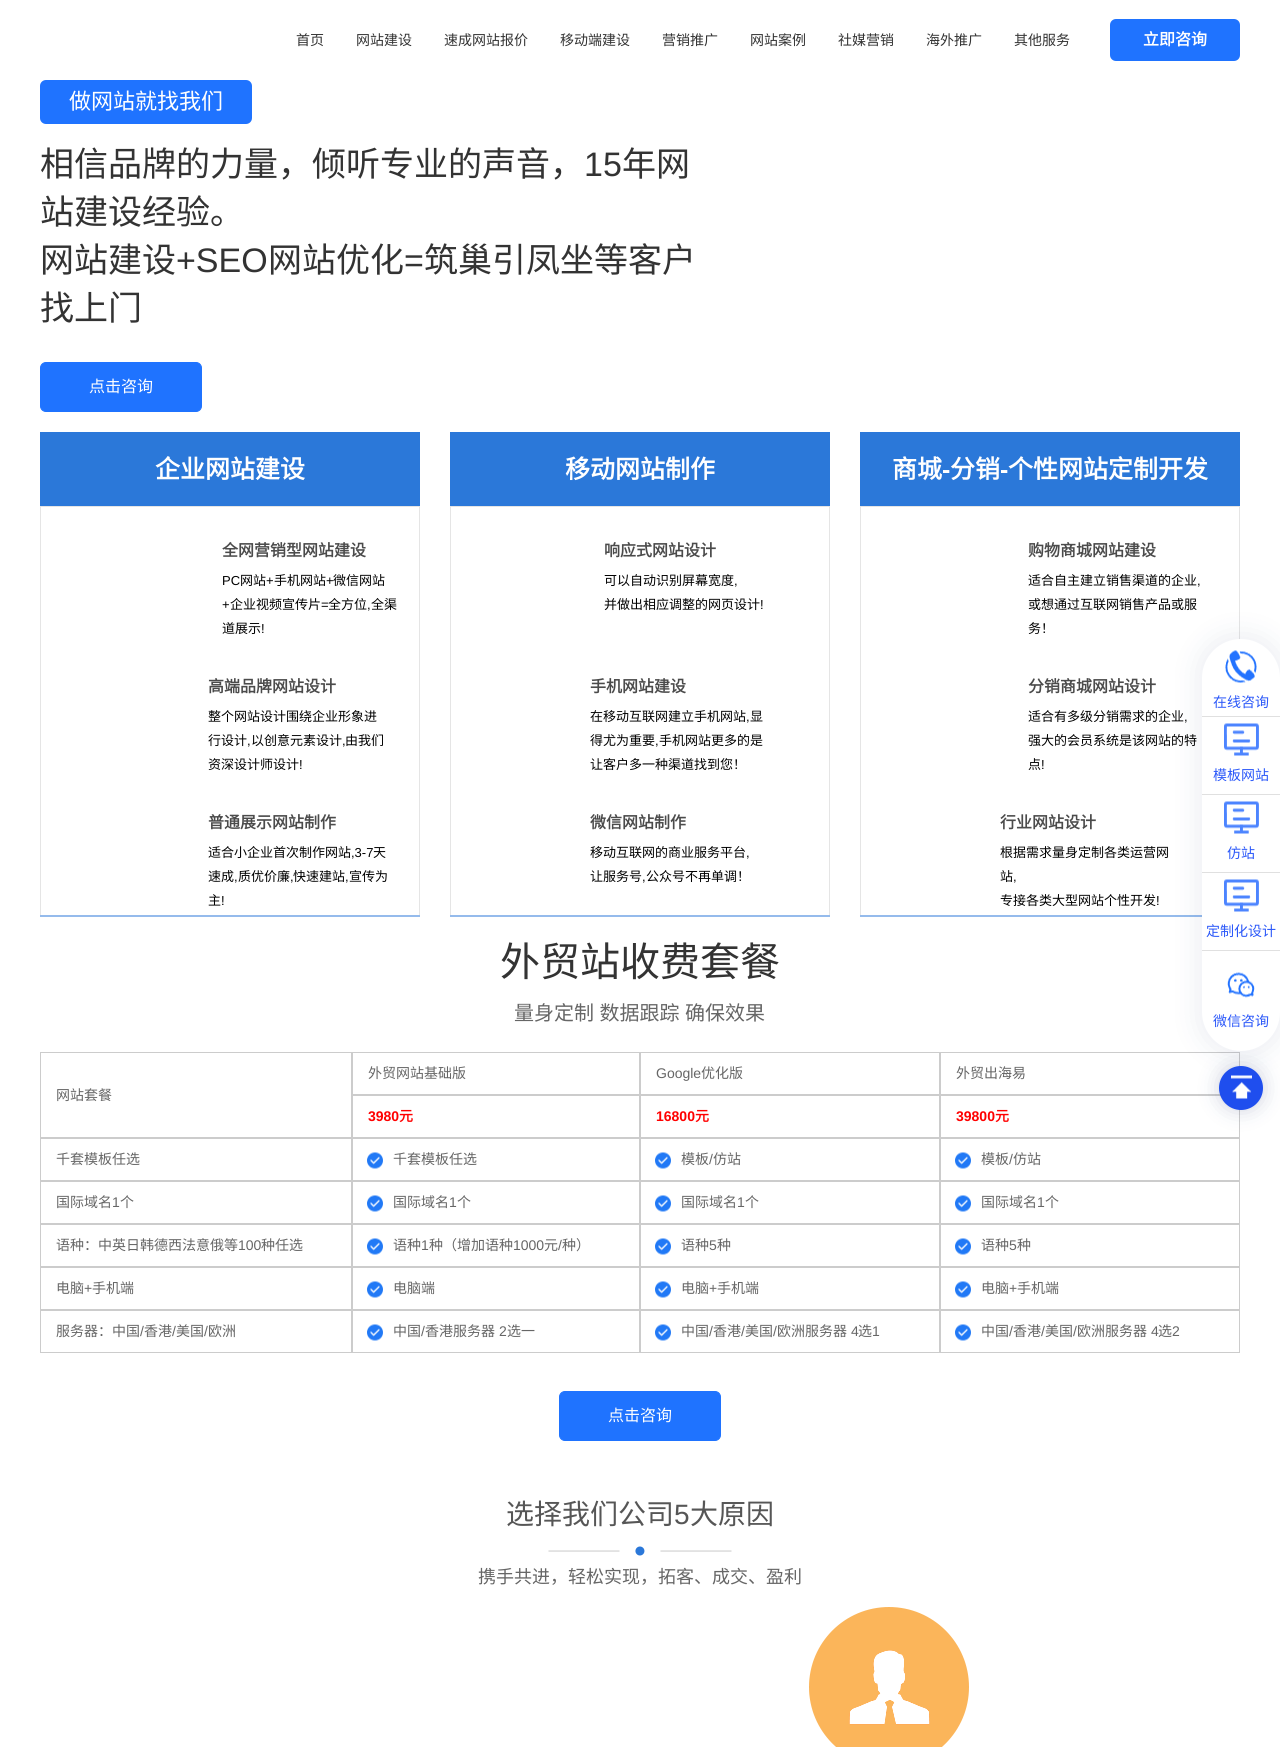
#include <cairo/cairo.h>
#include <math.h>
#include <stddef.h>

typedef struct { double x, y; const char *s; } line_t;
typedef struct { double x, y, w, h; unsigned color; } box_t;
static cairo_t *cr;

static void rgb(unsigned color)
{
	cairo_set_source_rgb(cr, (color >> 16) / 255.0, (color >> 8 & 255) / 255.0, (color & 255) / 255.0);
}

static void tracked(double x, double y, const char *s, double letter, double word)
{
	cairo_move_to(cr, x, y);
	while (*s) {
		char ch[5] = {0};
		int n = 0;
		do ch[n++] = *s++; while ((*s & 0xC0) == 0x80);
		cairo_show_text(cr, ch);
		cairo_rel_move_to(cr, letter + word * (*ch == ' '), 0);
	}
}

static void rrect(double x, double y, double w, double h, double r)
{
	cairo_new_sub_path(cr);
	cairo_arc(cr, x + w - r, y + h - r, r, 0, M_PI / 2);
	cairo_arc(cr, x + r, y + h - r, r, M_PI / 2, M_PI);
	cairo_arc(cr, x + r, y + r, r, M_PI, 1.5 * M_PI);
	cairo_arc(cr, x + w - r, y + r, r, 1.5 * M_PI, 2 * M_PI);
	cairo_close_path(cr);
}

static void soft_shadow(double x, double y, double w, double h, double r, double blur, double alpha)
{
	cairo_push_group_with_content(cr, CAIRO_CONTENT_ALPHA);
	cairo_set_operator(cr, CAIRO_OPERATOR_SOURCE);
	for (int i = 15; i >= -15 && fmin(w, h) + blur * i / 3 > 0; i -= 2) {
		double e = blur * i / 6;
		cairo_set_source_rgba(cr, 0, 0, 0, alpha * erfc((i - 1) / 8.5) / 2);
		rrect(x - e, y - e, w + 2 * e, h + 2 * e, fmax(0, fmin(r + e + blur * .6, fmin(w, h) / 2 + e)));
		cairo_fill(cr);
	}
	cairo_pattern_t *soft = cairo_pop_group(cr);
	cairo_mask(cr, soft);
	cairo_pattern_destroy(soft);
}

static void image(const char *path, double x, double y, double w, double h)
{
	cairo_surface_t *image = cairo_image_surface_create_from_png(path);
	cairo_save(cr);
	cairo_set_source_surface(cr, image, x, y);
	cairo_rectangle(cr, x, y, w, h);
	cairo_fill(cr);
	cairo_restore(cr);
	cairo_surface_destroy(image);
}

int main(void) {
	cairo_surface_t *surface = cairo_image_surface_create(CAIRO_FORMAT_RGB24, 1280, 1747);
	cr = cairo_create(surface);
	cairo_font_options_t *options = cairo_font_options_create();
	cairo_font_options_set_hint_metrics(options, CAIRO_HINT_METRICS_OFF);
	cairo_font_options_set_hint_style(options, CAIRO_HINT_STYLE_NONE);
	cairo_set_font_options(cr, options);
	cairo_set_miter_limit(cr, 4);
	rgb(0xffffff);
	cairo_paint(cr);
	rgb(0x1f73ff);
	rrect(1110, 19, 130, 42, 6);
	cairo_fill(cr);
	rrect(40, 80, 212, 44, 6);
	cairo_fill(cr);
	rrect(40.5, 362.5, 161, 49, 5.5);
	cairo_fill_preserve(cr);
	cairo_set_line_width(cr, 1);
	cairo_stroke(cr);
	{
		static const box_t items[] = {
			{40, 915, 380, 2, 0x95bbec},
			{40, 432, 380, 74, 0x2b78d9},
			{40, 506, 380, 1, 0xe5e5e5},
			{419, 506, 1, 409, 0xe5e5e5},
			{40, 506, 1, 409, 0xe5e5e5},
			{450, 915, 380, 2, 0x95bbec},
			{450, 432, 380, 74, 0x2b78d9},
			{450, 506, 380, 1, 0xe5e5e5},
			{829, 506, 1, 409, 0xe5e5e5},
			{450, 506, 1, 409, 0xe5e5e5},
			{860, 915, 342, 2, 0x95bbec},
			{860, 432, 380, 74, 0x2b78d9},
			{860, 506, 380, 1, 0xe5e5e5},
			{1239, 506, 1, 134, 0xe5e5e5},
			{860, 506, 1, 409, 0xe5e5e5},
		};
		for (size_t i = 0; i < sizeof items / sizeof *items; i++) {
			rgb(items[i].color);
			cairo_rectangle(cr, items[i].x, items[i].y, items[i].w, items[i].h);
			cairo_fill(cr);
		}
	}
	cairo_rectangle(cr, 352.5, 1052.5, 287, 42);
	rgb(0xcccccc);
	cairo_stroke(cr);
	cairo_rectangle(cr, 640.5, 1052.5, 299, 42);
	cairo_stroke(cr);
	cairo_rectangle(cr, 940.5, 1052.5, 299, 42);
	cairo_stroke(cr);
	cairo_rectangle(cr, 40.5, 1052.5, 311, 85);
	cairo_stroke(cr);
	cairo_rectangle(cr, 352.5, 1095.5, 287, 42);
	cairo_stroke(cr);
	cairo_rectangle(cr, 640.5, 1095.5, 299, 42);
	cairo_stroke(cr);
	cairo_rectangle(cr, 940.5, 1095.5, 299, 42);
	cairo_stroke(cr);
	cairo_rectangle(cr, 40.5, 1138.5, 311, 42);
	cairo_stroke(cr);
	cairo_rectangle(cr, 352.5, 1138.5, 287, 42);
	cairo_stroke(cr);
	image("img/1.png", 367, 1152, 16, 17);
	cairo_rectangle(cr, 640.5, 1138.5, 299, 42);
	cairo_stroke(cr);
	image("img/1.png", 655, 1152, 16, 17);
	cairo_rectangle(cr, 940.5, 1138.5, 299, 42);
	cairo_stroke(cr);
	image("img/1.png", 955, 1152, 16, 17);
	cairo_rectangle(cr, 40.5, 1181.5, 311, 42);
	cairo_stroke(cr);
	cairo_rectangle(cr, 352.5, 1181.5, 287, 42);
	cairo_stroke(cr);
	image("img/1.png", 367, 1195, 16, 17);
	cairo_rectangle(cr, 640.5, 1181.5, 299, 42);
	cairo_stroke(cr);
	image("img/1.png", 655, 1195, 16, 17);
	cairo_rectangle(cr, 940.5, 1181.5, 299, 42);
	cairo_stroke(cr);
	image("img/1.png", 955, 1195, 16, 17);
	cairo_rectangle(cr, 40.5, 1224.5, 311, 42);
	cairo_stroke(cr);
	cairo_rectangle(cr, 352.5, 1224.5, 287, 42);
	cairo_stroke(cr);
	image("img/1.png", 367, 1238, 16, 17);
	cairo_rectangle(cr, 640.5, 1224.5, 299, 42);
	cairo_stroke(cr);
	image("img/1.png", 655, 1238, 16, 17);
	cairo_rectangle(cr, 940.5, 1224.5, 299, 42);
	cairo_stroke(cr);
	image("img/1.png", 955, 1238, 16, 17);
	cairo_rectangle(cr, 40.5, 1267.5, 311, 42);
	cairo_stroke(cr);
	cairo_rectangle(cr, 352.5, 1267.5, 287, 42);
	cairo_stroke(cr);
	image("img/1.png", 367, 1281, 16, 17);
	cairo_rectangle(cr, 640.5, 1267.5, 299, 42);
	cairo_stroke(cr);
	image("img/1.png", 655, 1281, 16, 17);
	cairo_rectangle(cr, 940.5, 1267.5, 299, 42);
	cairo_stroke(cr);
	image("img/1.png", 955, 1281, 16, 17);
	cairo_rectangle(cr, 40.5, 1310.5, 311, 42);
	cairo_stroke(cr);
	cairo_rectangle(cr, 352.5, 1310.5, 287, 42);
	cairo_stroke(cr);
	image("img/1.png", 367, 1324, 16, 17);
	cairo_rectangle(cr, 640.5, 1310.5, 299, 42);
	cairo_stroke(cr);
	image("img/1.png", 655, 1324, 16, 17);
	cairo_rectangle(cr, 940.5, 1310.5, 299, 42);
	cairo_stroke(cr);
	image("img/1.png", 955, 1324, 16, 17);
	rgb(0x1f73ff);
	rrect(559.5, 1391.5, 161, 49, 5.5);
	cairo_fill_preserve(cr);
	cairo_stroke(cr);
	image("img/2.png", 548, 1546, 184, 10);
	image("img/3.png", 809, 1607, 160, 140);
	rgb(0x0e2161);
	soft_shadow(1202, 639, 78, 412, 39, 15, 0.1);
	rgb(0xe0e0e0);
	cairo_rectangle(cr, 1202, 716, 78, 1);
	cairo_fill(cr);
	rgb(0xffffff);
	cairo_new_path(cr);
	cairo_move_to(cr, 1241, 639);
	cairo_curve_to(cr, 1262.5, 639, 1280, 656.5, 1280, 678);
	cairo_line_to(cr, 1280, 716);
	cairo_line_to(cr, 1202, 716);
	cairo_line_to(cr, 1202, 678);
	cairo_curve_to(cr, 1202, 656.5, 1219.5, 639, 1241, 639);
	cairo_close_path(cr);
	cairo_fill(cr);
	image("img/4.png", 1225, 650, 32, 33);
	rgb(0xe0e0e0);
	cairo_rectangle(cr, 1202, 794, 78, 1);
	cairo_fill(cr);
	rgb(0xffffff);
	cairo_rectangle(cr, 1202, 717, 78, 77);
	cairo_fill(cr);
	image("img/5.png", 1224, 723, 35, 33);
	rgb(0xe0e0e0);
	cairo_rectangle(cr, 1202, 872, 78, 1);
	cairo_fill(cr);
	rgb(0xffffff);
	cairo_rectangle(cr, 1202, 795, 78, 77);
	cairo_fill(cr);
	image("img/5.png", 1224, 801, 35, 33);
	rgb(0xe0e0e0);
	cairo_rectangle(cr, 1202, 950, 78, 1);
	cairo_fill(cr);
	rgb(0xffffff);
	cairo_rectangle(cr, 1202, 873, 78, 77);
	cairo_fill(cr);
	image("img/5.png", 1224, 879, 35, 33);
	rgb(0x0e2161);
	soft_shadow(1219, 1066, 44, 44, 22, 10, 0.2);
	rgb(0xffffff);
	cairo_new_path(cr);
	cairo_move_to(cr, 1202, 951);
	cairo_line_to(cr, 1280, 951);
	cairo_line_to(cr, 1280, 1012);
	cairo_curve_to(cr, 1280, 1033.5, 1262.5, 1051, 1241, 1051);
	cairo_curve_to(cr, 1219.5, 1051, 1202, 1033.5, 1202, 1012);
	cairo_close_path(cr);
	cairo_fill(cr);
	image("img/6.png", 1227, 972, 28, 26);
	rgb(0x1f4eee);
	cairo_arc(cr, 1241, 1088, 22, 0, 2 * M_PI);
	cairo_fill(cr);
	image("img/7.png", 1231, 1075, 21, 24);
	cairo_select_font_face(cr, "Noto Sans CJK SC", CAIRO_FONT_SLANT_NORMAL, CAIRO_FONT_WEIGHT_NORMAL);
	cairo_set_font_size(cr, 14);
	rgb(0x333333);
	{
		static const line_t items[] = {
			{296, 45, "首页"},
			{356, 45, "网站建设"},
			{444, 45, "速成网站报价"},
			{560, 45, "移动端建设"},
			{662, 45, "营销推广"},
			{750, 45, "网站案例"},
			{838, 45, "社媒营销"},
			{926, 45, "海外推广"},
			{1014, 45, "其他服务"},
		};
		for (size_t i = 0; i < sizeof items / sizeof *items; i++) {
			cairo_move_to(cr, items[i].x, items[i].y);
			cairo_show_text(cr, items[i].s);
		}
	}
	cairo_select_font_face(cr, "Noto Sans CJK SC", CAIRO_FONT_SLANT_NORMAL, CAIRO_FONT_WEIGHT_BOLD);
	cairo_set_font_size(cr, 16);
	rgb(0xffffff);
	cairo_move_to(cr, 1143, 45);
	cairo_show_text(cr, "立即咨询");
	cairo_select_font_face(cr, "Noto Sans CJK SC", CAIRO_FONT_SLANT_NORMAL, CAIRO_FONT_WEIGHT_NORMAL);
	cairo_set_font_size(cr, 22);
	cairo_move_to(cr, 69, 109);
	cairo_show_text(cr, "做网站就找我们");
	cairo_set_font_size(cr, 34);
	rgb(0x333333);
	cairo_move_to(cr, 40, 176);
	cairo_show_text(cr, "相信品牌的力量，倾听专业的声音，");
	cairo_select_font_face(cr, "Liberation Sans", CAIRO_FONT_SLANT_NORMAL, CAIRO_FONT_WEIGHT_NORMAL);
	cairo_move_to(cr, 584, 176);
	cairo_show_text(cr, "15");
	cairo_select_font_face(cr, "Noto Sans CJK SC", CAIRO_FONT_SLANT_NORMAL, CAIRO_FONT_WEIGHT_NORMAL);
	{
		static const line_t items[] = {
			{622, 176, "年网"},
			{40, 224, "站建设经验。"},
			{40, 272, "网站建设"},
		};
		for (size_t i = 0; i < sizeof items / sizeof *items; i++) {
			cairo_move_to(cr, items[i].x, items[i].y);
			cairo_show_text(cr, items[i].s);
		}
	}
	cairo_select_font_face(cr, "Liberation Sans", CAIRO_FONT_SLANT_NORMAL, CAIRO_FONT_WEIGHT_NORMAL);
	cairo_move_to(cr, 176, 272);
	cairo_show_text(cr, "+SEO");
	cairo_select_font_face(cr, "Noto Sans CJK SC", CAIRO_FONT_SLANT_NORMAL, CAIRO_FONT_WEIGHT_NORMAL);
	cairo_move_to(cr, 268, 272);
	cairo_show_text(cr, "网站优化");
	cairo_select_font_face(cr, "Liberation Sans", CAIRO_FONT_SLANT_NORMAL, CAIRO_FONT_WEIGHT_NORMAL);
	cairo_move_to(cr, 404, 272);
	cairo_show_text(cr, "=");
	cairo_select_font_face(cr, "Noto Sans CJK SC", CAIRO_FONT_SLANT_NORMAL, CAIRO_FONT_WEIGHT_NORMAL);
	cairo_move_to(cr, 424, 272);
	cairo_show_text(cr, "筑巢引凤坐等客户");
	cairo_move_to(cr, 40, 320);
	cairo_show_text(cr, "找上门");
	cairo_set_font_size(cr, 16);
	rgb(0xffffff);
	cairo_move_to(cr, 89, 392);
	cairo_show_text(cr, "点击咨询");
	cairo_select_font_face(cr, "Noto Sans CJK SC", CAIRO_FONT_SLANT_NORMAL, CAIRO_FONT_WEIGHT_BOLD);
	cairo_set_font_size(cr, 25);
	cairo_move_to(cr, 155, 478);
	cairo_show_text(cr, "企业网站建设");
	cairo_set_font_size(cr, 16);
	rgb(0x4b4b4b);
	cairo_move_to(cr, 222, 556);
	cairo_show_text(cr, "全网营销型网站建设");
	cairo_select_font_face(cr, "Liberation Sans", CAIRO_FONT_SLANT_NORMAL, CAIRO_FONT_WEIGHT_NORMAL);
	cairo_set_font_size(cr, 13);
	rgb(0x000000);
	cairo_move_to(cr, 222, 585);
	cairo_show_text(cr, "PC");
	cairo_select_font_face(cr, "Noto Sans CJK SC", CAIRO_FONT_SLANT_NORMAL, CAIRO_FONT_WEIGHT_NORMAL);
	cairo_move_to(cr, 240, 585);
	cairo_show_text(cr, "网站");
	cairo_select_font_face(cr, "Liberation Sans", CAIRO_FONT_SLANT_NORMAL, CAIRO_FONT_WEIGHT_NORMAL);
	cairo_move_to(cr, 266, 585);
	cairo_show_text(cr, "+");
	cairo_select_font_face(cr, "Noto Sans CJK SC", CAIRO_FONT_SLANT_NORMAL, CAIRO_FONT_WEIGHT_NORMAL);
	cairo_move_to(cr, 274, 585);
	cairo_show_text(cr, "手机网站");
	cairo_select_font_face(cr, "Liberation Sans", CAIRO_FONT_SLANT_NORMAL, CAIRO_FONT_WEIGHT_NORMAL);
	cairo_move_to(cr, 326, 585);
	cairo_show_text(cr, "+");
	cairo_select_font_face(cr, "Noto Sans CJK SC", CAIRO_FONT_SLANT_NORMAL, CAIRO_FONT_WEIGHT_NORMAL);
	cairo_move_to(cr, 333, 585);
	cairo_show_text(cr, "微信网站");
	cairo_select_font_face(cr, "Liberation Sans", CAIRO_FONT_SLANT_NORMAL, CAIRO_FONT_WEIGHT_NORMAL);
	cairo_move_to(cr, 222, 609);
	cairo_show_text(cr, "+");
	cairo_select_font_face(cr, "Noto Sans CJK SC", CAIRO_FONT_SLANT_NORMAL, CAIRO_FONT_WEIGHT_NORMAL);
	cairo_move_to(cr, 230, 609);
	cairo_show_text(cr, "企业视频宣传片");
	cairo_select_font_face(cr, "Liberation Sans", CAIRO_FONT_SLANT_NORMAL, CAIRO_FONT_WEIGHT_NORMAL);
	cairo_move_to(cr, 321, 609);
	cairo_show_text(cr, "=");
	cairo_select_font_face(cr, "Noto Sans CJK SC", CAIRO_FONT_SLANT_NORMAL, CAIRO_FONT_WEIGHT_NORMAL);
	cairo_move_to(cr, 328, 609);
	cairo_show_text(cr, "全方位");
	cairo_move_to(cr, 371, 609);
	cairo_show_text(cr, "全渠");
	cairo_select_font_face(cr, "Liberation Sans", CAIRO_FONT_SLANT_NORMAL, CAIRO_FONT_WEIGHT_NORMAL);
	cairo_move_to(cr, 367, 609);
	cairo_show_text(cr, ",");
	cairo_select_font_face(cr, "Noto Sans CJK SC", CAIRO_FONT_SLANT_NORMAL, CAIRO_FONT_WEIGHT_NORMAL);
	cairo_move_to(cr, 222, 633);
	cairo_show_text(cr, "道展示");
	cairo_select_font_face(cr, "Liberation Sans", CAIRO_FONT_SLANT_NORMAL, CAIRO_FONT_WEIGHT_NORMAL);
	cairo_move_to(cr, 261, 633);
	cairo_show_text(cr, "!");
	cairo_select_font_face(cr, "Noto Sans CJK SC", CAIRO_FONT_SLANT_NORMAL, CAIRO_FONT_WEIGHT_BOLD);
	cairo_set_font_size(cr, 16);
	rgb(0x4b4b4b);
	cairo_move_to(cr, 208, 692);
	cairo_show_text(cr, "高端品牌网站设计");
	cairo_select_font_face(cr, "Noto Sans CJK SC", CAIRO_FONT_SLANT_NORMAL, CAIRO_FONT_WEIGHT_NORMAL);
	cairo_set_font_size(cr, 13);
	rgb(0x000000);
	cairo_move_to(cr, 208, 721);
	cairo_show_text(cr, "整个网站设计围绕企业形象进");
	cairo_move_to(cr, 208, 745);
	cairo_show_text(cr, "行设计");
	cairo_select_font_face(cr, "Liberation Sans", CAIRO_FONT_SLANT_NORMAL, CAIRO_FONT_WEIGHT_NORMAL);
	cairo_move_to(cr, 247, 745);
	cairo_show_text(cr, ",");
	cairo_select_font_face(cr, "Noto Sans CJK SC", CAIRO_FONT_SLANT_NORMAL, CAIRO_FONT_WEIGHT_NORMAL);
	cairo_move_to(cr, 251, 745);
	cairo_show_text(cr, "以创意元素设计");
	cairo_select_font_face(cr, "Liberation Sans", CAIRO_FONT_SLANT_NORMAL, CAIRO_FONT_WEIGHT_NORMAL);
	cairo_move_to(cr, 342, 745);
	cairo_show_text(cr, ",");
	cairo_select_font_face(cr, "Noto Sans CJK SC", CAIRO_FONT_SLANT_NORMAL, CAIRO_FONT_WEIGHT_NORMAL);
	cairo_move_to(cr, 345, 745);
	cairo_show_text(cr, "由我们");
	cairo_move_to(cr, 208, 769);
	cairo_show_text(cr, "资深设计师设计");
	cairo_select_font_face(cr, "Liberation Sans", CAIRO_FONT_SLANT_NORMAL, CAIRO_FONT_WEIGHT_NORMAL);
	cairo_move_to(cr, 299, 769);
	cairo_show_text(cr, "!");
	cairo_select_font_face(cr, "Noto Sans CJK SC", CAIRO_FONT_SLANT_NORMAL, CAIRO_FONT_WEIGHT_BOLD);
	cairo_set_font_size(cr, 16);
	rgb(0x4b4b4b);
	cairo_move_to(cr, 208, 828);
	cairo_show_text(cr, "普通展示网站制作");
	cairo_select_font_face(cr, "Noto Sans CJK SC", CAIRO_FONT_SLANT_NORMAL, CAIRO_FONT_WEIGHT_NORMAL);
	cairo_set_font_size(cr, 13);
	rgb(0x000000);
	cairo_move_to(cr, 208, 857);
	cairo_show_text(cr, "适合小企业首次制作网站");
	cairo_select_font_face(cr, "Liberation Sans", CAIRO_FONT_SLANT_NORMAL, CAIRO_FONT_WEIGHT_NORMAL);
	cairo_move_to(cr, 351, 857);
	cairo_show_text(cr, ",3-7");
	cairo_select_font_face(cr, "Noto Sans CJK SC", CAIRO_FONT_SLANT_NORMAL, CAIRO_FONT_WEIGHT_NORMAL);
	cairo_move_to(cr, 373, 857);
	cairo_show_text(cr, "天");
	cairo_move_to(cr, 208, 881);
	cairo_show_text(cr, "速成");
	cairo_select_font_face(cr, "Liberation Sans", CAIRO_FONT_SLANT_NORMAL, CAIRO_FONT_WEIGHT_NORMAL);
	cairo_move_to(cr, 234, 881);
	cairo_show_text(cr, ",");
	cairo_select_font_face(cr, "Noto Sans CJK SC", CAIRO_FONT_SLANT_NORMAL, CAIRO_FONT_WEIGHT_NORMAL);
	cairo_move_to(cr, 238, 881);
	cairo_show_text(cr, "质优价廉");
	cairo_select_font_face(cr, "Liberation Sans", CAIRO_FONT_SLANT_NORMAL, CAIRO_FONT_WEIGHT_NORMAL);
	cairo_move_to(cr, 290, 881);
	cairo_show_text(cr, ",");
	cairo_select_font_face(cr, "Noto Sans CJK SC", CAIRO_FONT_SLANT_NORMAL, CAIRO_FONT_WEIGHT_NORMAL);
	cairo_move_to(cr, 293, 881);
	cairo_show_text(cr, "快速建站");
	cairo_select_font_face(cr, "Liberation Sans", CAIRO_FONT_SLANT_NORMAL, CAIRO_FONT_WEIGHT_NORMAL);
	cairo_move_to(cr, 345, 881);
	cairo_show_text(cr, ",");
	cairo_select_font_face(cr, "Noto Sans CJK SC", CAIRO_FONT_SLANT_NORMAL, CAIRO_FONT_WEIGHT_NORMAL);
	cairo_move_to(cr, 349, 881);
	cairo_show_text(cr, "宣传为");
	cairo_move_to(cr, 208, 905);
	cairo_show_text(cr, "主");
	cairo_select_font_face(cr, "Liberation Sans", CAIRO_FONT_SLANT_NORMAL, CAIRO_FONT_WEIGHT_NORMAL);
	cairo_move_to(cr, 221, 905);
	cairo_show_text(cr, "!");
	cairo_select_font_face(cr, "Noto Sans CJK SC", CAIRO_FONT_SLANT_NORMAL, CAIRO_FONT_WEIGHT_BOLD);
	cairo_set_font_size(cr, 25);
	rgb(0xffffff);
	cairo_move_to(cr, 565, 478);
	cairo_show_text(cr, "移动网站制作");
	cairo_set_font_size(cr, 16);
	rgb(0x4b4b4b);
	cairo_move_to(cr, 604, 556);
	cairo_show_text(cr, "响应式网站设计");
	cairo_select_font_face(cr, "Noto Sans CJK SC", CAIRO_FONT_SLANT_NORMAL, CAIRO_FONT_WEIGHT_NORMAL);
	cairo_set_font_size(cr, 13);
	rgb(0x000000);
	cairo_move_to(cr, 604, 585);
	cairo_show_text(cr, "可以自动识别屏幕宽度");
	cairo_select_font_face(cr, "Liberation Sans", CAIRO_FONT_SLANT_NORMAL, CAIRO_FONT_WEIGHT_NORMAL);
	cairo_move_to(cr, 734, 585);
	cairo_show_text(cr, ",");
	cairo_select_font_face(cr, "Noto Sans CJK SC", CAIRO_FONT_SLANT_NORMAL, CAIRO_FONT_WEIGHT_NORMAL);
	cairo_move_to(cr, 604, 609);
	cairo_show_text(cr, "并做出相应调整的网页设计");
	cairo_select_font_face(cr, "Liberation Sans", CAIRO_FONT_SLANT_NORMAL, CAIRO_FONT_WEIGHT_NORMAL);
	cairo_move_to(cr, 760, 609);
	cairo_show_text(cr, "!");
	cairo_select_font_face(cr, "Noto Sans CJK SC", CAIRO_FONT_SLANT_NORMAL, CAIRO_FONT_WEIGHT_BOLD);
	cairo_set_font_size(cr, 16);
	rgb(0x4b4b4b);
	cairo_move_to(cr, 590, 692);
	cairo_show_text(cr, "手机网站建设");
	cairo_select_font_face(cr, "Noto Sans CJK SC", CAIRO_FONT_SLANT_NORMAL, CAIRO_FONT_WEIGHT_NORMAL);
	cairo_set_font_size(cr, 13);
	rgb(0x000000);
	cairo_move_to(cr, 590, 721);
	cairo_show_text(cr, "在移动互联网建立手机网站");
	cairo_select_font_face(cr, "Liberation Sans", CAIRO_FONT_SLANT_NORMAL, CAIRO_FONT_WEIGHT_NORMAL);
	cairo_move_to(cr, 746, 721);
	cairo_show_text(cr, ",");
	cairo_select_font_face(cr, "Noto Sans CJK SC", CAIRO_FONT_SLANT_NORMAL, CAIRO_FONT_WEIGHT_NORMAL);
	cairo_move_to(cr, 750, 721);
	cairo_show_text(cr, "显");
	cairo_move_to(cr, 590, 745);
	cairo_show_text(cr, "得尤为重要");
	cairo_select_font_face(cr, "Liberation Sans", CAIRO_FONT_SLANT_NORMAL, CAIRO_FONT_WEIGHT_NORMAL);
	cairo_move_to(cr, 655, 745);
	cairo_show_text(cr, ",");
	cairo_select_font_face(cr, "Noto Sans CJK SC", CAIRO_FONT_SLANT_NORMAL, CAIRO_FONT_WEIGHT_NORMAL);
	cairo_move_to(cr, 659, 745);
	cairo_show_text(cr, "手机网站更多的是");
	cairo_move_to(cr, 590, 769);
	cairo_show_text(cr, "让客户多一种渠道找到您！");
	cairo_select_font_face(cr, "Noto Sans CJK SC", CAIRO_FONT_SLANT_NORMAL, CAIRO_FONT_WEIGHT_BOLD);
	cairo_set_font_size(cr, 16);
	rgb(0x4b4b4b);
	cairo_move_to(cr, 590, 828);
	cairo_show_text(cr, "微信网站制作");
	cairo_select_font_face(cr, "Noto Sans CJK SC", CAIRO_FONT_SLANT_NORMAL, CAIRO_FONT_WEIGHT_NORMAL);
	cairo_set_font_size(cr, 13);
	rgb(0x000000);
	cairo_move_to(cr, 590, 857);
	cairo_show_text(cr, "移动互联网的商业服务平台");
	cairo_select_font_face(cr, "Liberation Sans", CAIRO_FONT_SLANT_NORMAL, CAIRO_FONT_WEIGHT_NORMAL);
	cairo_move_to(cr, 746, 857);
	cairo_show_text(cr, ",");
	cairo_select_font_face(cr, "Noto Sans CJK SC", CAIRO_FONT_SLANT_NORMAL, CAIRO_FONT_WEIGHT_NORMAL);
	cairo_move_to(cr, 590, 881);
	cairo_show_text(cr, "让服务号");
	cairo_select_font_face(cr, "Liberation Sans", CAIRO_FONT_SLANT_NORMAL, CAIRO_FONT_WEIGHT_NORMAL);
	cairo_move_to(cr, 642, 881);
	cairo_show_text(cr, ",");
	cairo_select_font_face(cr, "Noto Sans CJK SC", CAIRO_FONT_SLANT_NORMAL, CAIRO_FONT_WEIGHT_NORMAL);
	cairo_move_to(cr, 646, 881);
	cairo_show_text(cr, "公众号不再单调！");
	cairo_select_font_face(cr, "Noto Sans CJK SC", CAIRO_FONT_SLANT_NORMAL, CAIRO_FONT_WEIGHT_BOLD);
	cairo_set_font_size(cr, 25);
	rgb(0xffffff);
	cairo_move_to(cr, 892, 478);
	cairo_show_text(cr, "商城");
	cairo_select_font_face(cr, "Liberation Sans", CAIRO_FONT_SLANT_NORMAL, CAIRO_FONT_WEIGHT_BOLD);
	cairo_move_to(cr, 942, 478);
	cairo_show_text(cr, "-");
	cairo_select_font_face(cr, "Noto Sans CJK SC", CAIRO_FONT_SLANT_NORMAL, CAIRO_FONT_WEIGHT_BOLD);
	cairo_move_to(cr, 950, 478);
	cairo_show_text(cr, "分销");
	cairo_select_font_face(cr, "Liberation Sans", CAIRO_FONT_SLANT_NORMAL, CAIRO_FONT_WEIGHT_BOLD);
	cairo_move_to(cr, 1000, 478);
	cairo_show_text(cr, "-");
	cairo_select_font_face(cr, "Noto Sans CJK SC", CAIRO_FONT_SLANT_NORMAL, CAIRO_FONT_WEIGHT_BOLD);
	cairo_move_to(cr, 1008, 478);
	cairo_show_text(cr, "个性网站定制开发");
	cairo_set_font_size(cr, 16);
	rgb(0x4b4b4b);
	cairo_move_to(cr, 1028, 556);
	cairo_show_text(cr, "购物商城网站建设");
	cairo_select_font_face(cr, "Noto Sans CJK SC", CAIRO_FONT_SLANT_NORMAL, CAIRO_FONT_WEIGHT_NORMAL);
	cairo_set_font_size(cr, 13);
	rgb(0x000000);
	cairo_move_to(cr, 1028, 585);
	cairo_show_text(cr, "适合自主建立销售渠道的企业");
	cairo_select_font_face(cr, "Liberation Sans", CAIRO_FONT_SLANT_NORMAL, CAIRO_FONT_WEIGHT_NORMAL);
	cairo_move_to(cr, 1197, 585);
	cairo_show_text(cr, ",");
	cairo_select_font_face(cr, "Noto Sans CJK SC", CAIRO_FONT_SLANT_NORMAL, CAIRO_FONT_WEIGHT_NORMAL);
	cairo_move_to(cr, 1028, 609);
	cairo_show_text(cr, "或想通过互联网销售产品或服");
	cairo_move_to(cr, 1028, 633);
	cairo_show_text(cr, "务！");
	cairo_select_font_face(cr, "Noto Sans CJK SC", CAIRO_FONT_SLANT_NORMAL, CAIRO_FONT_WEIGHT_BOLD);
	cairo_set_font_size(cr, 16);
	rgb(0x4b4b4b);
	cairo_move_to(cr, 1028, 692);
	cairo_show_text(cr, "分销商城网站设计");
	cairo_select_font_face(cr, "Noto Sans CJK SC", CAIRO_FONT_SLANT_NORMAL, CAIRO_FONT_WEIGHT_NORMAL);
	cairo_set_font_size(cr, 13);
	rgb(0x000000);
	cairo_move_to(cr, 1028, 721);
	cairo_show_text(cr, "适合有多级分销需求的企业");
	cairo_select_font_face(cr, "Liberation Sans", CAIRO_FONT_SLANT_NORMAL, CAIRO_FONT_WEIGHT_NORMAL);
	cairo_move_to(cr, 1184, 721);
	cairo_show_text(cr, ",");
	cairo_select_font_face(cr, "Noto Sans CJK SC", CAIRO_FONT_SLANT_NORMAL, CAIRO_FONT_WEIGHT_NORMAL);
	cairo_move_to(cr, 1028, 745);
	cairo_show_text(cr, "强大的会员系统是该网站的特");
	cairo_move_to(cr, 1028, 769);
	cairo_show_text(cr, "点");
	cairo_select_font_face(cr, "Liberation Sans", CAIRO_FONT_SLANT_NORMAL, CAIRO_FONT_WEIGHT_NORMAL);
	cairo_move_to(cr, 1041, 769);
	cairo_show_text(cr, "!");
	cairo_select_font_face(cr, "Noto Sans CJK SC", CAIRO_FONT_SLANT_NORMAL, CAIRO_FONT_WEIGHT_BOLD);
	cairo_set_font_size(cr, 16);
	rgb(0x4b4b4b);
	cairo_move_to(cr, 1000, 828);
	cairo_show_text(cr, "行业网站设计");
	cairo_select_font_face(cr, "Noto Sans CJK SC", CAIRO_FONT_SLANT_NORMAL, CAIRO_FONT_WEIGHT_NORMAL);
	cairo_set_font_size(cr, 13);
	rgb(0x000000);
	cairo_move_to(cr, 1000, 857);
	cairo_show_text(cr, "根据需求量身定制各类运营网");
	cairo_move_to(cr, 1000, 881);
	cairo_show_text(cr, "站");
	cairo_select_font_face(cr, "Liberation Sans", CAIRO_FONT_SLANT_NORMAL, CAIRO_FONT_WEIGHT_NORMAL);
	cairo_move_to(cr, 1013, 881);
	cairo_show_text(cr, ",");
	cairo_select_font_face(cr, "Noto Sans CJK SC", CAIRO_FONT_SLANT_NORMAL, CAIRO_FONT_WEIGHT_NORMAL);
	cairo_move_to(cr, 1000, 905);
	cairo_show_text(cr, "专接各类大型网站个性开发");
	cairo_select_font_face(cr, "Liberation Sans", CAIRO_FONT_SLANT_NORMAL, CAIRO_FONT_WEIGHT_NORMAL);
	cairo_move_to(cr, 1156, 905);
	cairo_show_text(cr, "!");
	cairo_select_font_face(cr, "Noto Sans CJK SC", CAIRO_FONT_SLANT_NORMAL, CAIRO_FONT_WEIGHT_NORMAL);
	cairo_set_font_size(cr, 40);
	rgb(0x333333);
	cairo_move_to(cr, 500, 976);
	cairo_show_text(cr, "外贸站收费套餐");
	cairo_set_font_size(cr, 20);
	rgb(0x666666);
	tracked(514, 1020, "量身定制 数据跟踪 确保效果", 0, 1);
	cairo_set_font_size(cr, 14);
	cairo_move_to(cr, 368, 1078);
	cairo_show_text(cr, "外贸网站基础版");
	cairo_select_font_face(cr, "Liberation Sans", CAIRO_FONT_SLANT_NORMAL, CAIRO_FONT_WEIGHT_NORMAL);
	cairo_move_to(cr, 656, 1078);
	cairo_show_text(cr, "Google");
	cairo_select_font_face(cr, "Noto Sans CJK SC", CAIRO_FONT_SLANT_NORMAL, CAIRO_FONT_WEIGHT_NORMAL);
	{
		static const line_t items[] = {
			{701, 1078, "优化版"},
			{956, 1078, "外贸出海易"},
			{56, 1100, "网站套餐"},
		};
		for (size_t i = 0; i < sizeof items / sizeof *items; i++) {
			cairo_move_to(cr, items[i].x, items[i].y);
			cairo_show_text(cr, items[i].s);
		}
	}
	cairo_select_font_face(cr, "Liberation Sans", CAIRO_FONT_SLANT_NORMAL, CAIRO_FONT_WEIGHT_BOLD);
	rgb(0xff0000);
	cairo_move_to(cr, 368, 1121);
	cairo_show_text(cr, "3980");
	cairo_select_font_face(cr, "Noto Sans CJK SC", CAIRO_FONT_SLANT_NORMAL, CAIRO_FONT_WEIGHT_BOLD);
	cairo_move_to(cr, 399, 1121);
	cairo_show_text(cr, "元");
	cairo_select_font_face(cr, "Liberation Sans", CAIRO_FONT_SLANT_NORMAL, CAIRO_FONT_WEIGHT_BOLD);
	cairo_move_to(cr, 656, 1121);
	cairo_show_text(cr, "16800");
	cairo_select_font_face(cr, "Noto Sans CJK SC", CAIRO_FONT_SLANT_NORMAL, CAIRO_FONT_WEIGHT_BOLD);
	cairo_move_to(cr, 695, 1121);
	cairo_show_text(cr, "元");
	cairo_select_font_face(cr, "Liberation Sans", CAIRO_FONT_SLANT_NORMAL, CAIRO_FONT_WEIGHT_BOLD);
	cairo_move_to(cr, 956, 1121);
	cairo_show_text(cr, "39800");
	cairo_select_font_face(cr, "Noto Sans CJK SC", CAIRO_FONT_SLANT_NORMAL, CAIRO_FONT_WEIGHT_BOLD);
	cairo_move_to(cr, 995, 1121);
	cairo_show_text(cr, "元");
	cairo_select_font_face(cr, "Noto Sans CJK SC", CAIRO_FONT_SLANT_NORMAL, CAIRO_FONT_WEIGHT_NORMAL);
	rgb(0x666666);
	{
		static const line_t items[] = {
			{56, 1164, "千套模板任选"},
			{393, 1164, "千套模板任选"},
			{681, 1164, "模板"},
		};
		for (size_t i = 0; i < sizeof items / sizeof *items; i++) {
			cairo_move_to(cr, items[i].x, items[i].y);
			cairo_show_text(cr, items[i].s);
		}
	}
	cairo_select_font_face(cr, "Liberation Sans", CAIRO_FONT_SLANT_NORMAL, CAIRO_FONT_WEIGHT_NORMAL);
	cairo_move_to(cr, 709, 1164);
	cairo_show_text(cr, "/");
	cairo_select_font_face(cr, "Noto Sans CJK SC", CAIRO_FONT_SLANT_NORMAL, CAIRO_FONT_WEIGHT_NORMAL);
	cairo_move_to(cr, 713, 1164);
	cairo_show_text(cr, "仿站");
	cairo_move_to(cr, 981, 1164);
	cairo_show_text(cr, "模板");
	cairo_select_font_face(cr, "Liberation Sans", CAIRO_FONT_SLANT_NORMAL, CAIRO_FONT_WEIGHT_NORMAL);
	cairo_move_to(cr, 1009, 1164);
	cairo_show_text(cr, "/");
	cairo_select_font_face(cr, "Noto Sans CJK SC", CAIRO_FONT_SLANT_NORMAL, CAIRO_FONT_WEIGHT_NORMAL);
	cairo_move_to(cr, 1013, 1164);
	cairo_show_text(cr, "仿站");
	cairo_move_to(cr, 56, 1207);
	cairo_show_text(cr, "国际域名");
	cairo_select_font_face(cr, "Liberation Sans", CAIRO_FONT_SLANT_NORMAL, CAIRO_FONT_WEIGHT_NORMAL);
	cairo_move_to(cr, 112, 1207);
	cairo_show_text(cr, "1");
	cairo_select_font_face(cr, "Noto Sans CJK SC", CAIRO_FONT_SLANT_NORMAL, CAIRO_FONT_WEIGHT_NORMAL);
	cairo_move_to(cr, 120, 1207);
	cairo_show_text(cr, "个");
	cairo_move_to(cr, 393, 1207);
	cairo_show_text(cr, "国际域名");
	cairo_select_font_face(cr, "Liberation Sans", CAIRO_FONT_SLANT_NORMAL, CAIRO_FONT_WEIGHT_NORMAL);
	cairo_move_to(cr, 449, 1207);
	cairo_show_text(cr, "1");
	cairo_select_font_face(cr, "Noto Sans CJK SC", CAIRO_FONT_SLANT_NORMAL, CAIRO_FONT_WEIGHT_NORMAL);
	cairo_move_to(cr, 457, 1207);
	cairo_show_text(cr, "个");
	cairo_move_to(cr, 681, 1207);
	cairo_show_text(cr, "国际域名");
	cairo_select_font_face(cr, "Liberation Sans", CAIRO_FONT_SLANT_NORMAL, CAIRO_FONT_WEIGHT_NORMAL);
	cairo_move_to(cr, 737, 1207);
	cairo_show_text(cr, "1");
	cairo_select_font_face(cr, "Noto Sans CJK SC", CAIRO_FONT_SLANT_NORMAL, CAIRO_FONT_WEIGHT_NORMAL);
	cairo_move_to(cr, 745, 1207);
	cairo_show_text(cr, "个");
	cairo_move_to(cr, 981, 1207);
	cairo_show_text(cr, "国际域名");
	cairo_select_font_face(cr, "Liberation Sans", CAIRO_FONT_SLANT_NORMAL, CAIRO_FONT_WEIGHT_NORMAL);
	cairo_move_to(cr, 1037, 1207);
	cairo_show_text(cr, "1");
	cairo_select_font_face(cr, "Noto Sans CJK SC", CAIRO_FONT_SLANT_NORMAL, CAIRO_FONT_WEIGHT_NORMAL);
	cairo_move_to(cr, 1045, 1207);
	cairo_show_text(cr, "个");
	cairo_move_to(cr, 56, 1250);
	cairo_show_text(cr, "语种：中英日韩德西法意俄等");
	cairo_select_font_face(cr, "Liberation Sans", CAIRO_FONT_SLANT_NORMAL, CAIRO_FONT_WEIGHT_NORMAL);
	cairo_move_to(cr, 238, 1250);
	cairo_show_text(cr, "100");
	cairo_select_font_face(cr, "Noto Sans CJK SC", CAIRO_FONT_SLANT_NORMAL, CAIRO_FONT_WEIGHT_NORMAL);
	cairo_move_to(cr, 261, 1250);
	cairo_show_text(cr, "种任选");
	cairo_move_to(cr, 393, 1250);
	cairo_show_text(cr, "语种");
	cairo_select_font_face(cr, "Liberation Sans", CAIRO_FONT_SLANT_NORMAL, CAIRO_FONT_WEIGHT_NORMAL);
	cairo_move_to(cr, 421, 1250);
	cairo_show_text(cr, "1");
	cairo_select_font_face(cr, "Noto Sans CJK SC", CAIRO_FONT_SLANT_NORMAL, CAIRO_FONT_WEIGHT_NORMAL);
	cairo_move_to(cr, 429, 1250);
	cairo_show_text(cr, "种（增加语种");
	cairo_select_font_face(cr, "Liberation Sans", CAIRO_FONT_SLANT_NORMAL, CAIRO_FONT_WEIGHT_NORMAL);
	cairo_move_to(cr, 513, 1250);
	cairo_show_text(cr, "1000");
	cairo_select_font_face(cr, "Noto Sans CJK SC", CAIRO_FONT_SLANT_NORMAL, CAIRO_FONT_WEIGHT_NORMAL);
	cairo_move_to(cr, 544, 1250);
	cairo_show_text(cr, "元");
	cairo_select_font_face(cr, "Liberation Sans", CAIRO_FONT_SLANT_NORMAL, CAIRO_FONT_WEIGHT_NORMAL);
	cairo_move_to(cr, 558, 1250);
	cairo_show_text(cr, "/");
	cairo_select_font_face(cr, "Noto Sans CJK SC", CAIRO_FONT_SLANT_NORMAL, CAIRO_FONT_WEIGHT_NORMAL);
	cairo_move_to(cr, 562, 1250);
	cairo_show_text(cr, "种）");
	cairo_move_to(cr, 681, 1250);
	cairo_show_text(cr, "语种");
	cairo_select_font_face(cr, "Liberation Sans", CAIRO_FONT_SLANT_NORMAL, CAIRO_FONT_WEIGHT_NORMAL);
	cairo_move_to(cr, 709, 1250);
	cairo_show_text(cr, "5");
	cairo_select_font_face(cr, "Noto Sans CJK SC", CAIRO_FONT_SLANT_NORMAL, CAIRO_FONT_WEIGHT_NORMAL);
	cairo_move_to(cr, 717, 1250);
	cairo_show_text(cr, "种");
	cairo_move_to(cr, 981, 1250);
	cairo_show_text(cr, "语种");
	cairo_select_font_face(cr, "Liberation Sans", CAIRO_FONT_SLANT_NORMAL, CAIRO_FONT_WEIGHT_NORMAL);
	cairo_move_to(cr, 1009, 1250);
	cairo_show_text(cr, "5");
	cairo_select_font_face(cr, "Noto Sans CJK SC", CAIRO_FONT_SLANT_NORMAL, CAIRO_FONT_WEIGHT_NORMAL);
	cairo_move_to(cr, 1017, 1250);
	cairo_show_text(cr, "种");
	cairo_move_to(cr, 56, 1293);
	cairo_show_text(cr, "电脑");
	cairo_select_font_face(cr, "Liberation Sans", CAIRO_FONT_SLANT_NORMAL, CAIRO_FONT_WEIGHT_NORMAL);
	cairo_move_to(cr, 84, 1293);
	cairo_show_text(cr, "+");
	cairo_select_font_face(cr, "Noto Sans CJK SC", CAIRO_FONT_SLANT_NORMAL, CAIRO_FONT_WEIGHT_NORMAL);
	{
		static const line_t items[] = {
			{92, 1293, "手机端"},
			{393, 1293, "电脑端"},
			{681, 1293, "电脑"},
		};
		for (size_t i = 0; i < sizeof items / sizeof *items; i++) {
			cairo_move_to(cr, items[i].x, items[i].y);
			cairo_show_text(cr, items[i].s);
		}
	}
	cairo_select_font_face(cr, "Liberation Sans", CAIRO_FONT_SLANT_NORMAL, CAIRO_FONT_WEIGHT_NORMAL);
	cairo_move_to(cr, 709, 1293);
	cairo_show_text(cr, "+");
	cairo_select_font_face(cr, "Noto Sans CJK SC", CAIRO_FONT_SLANT_NORMAL, CAIRO_FONT_WEIGHT_NORMAL);
	cairo_move_to(cr, 717, 1293);
	cairo_show_text(cr, "手机端");
	cairo_move_to(cr, 981, 1293);
	cairo_show_text(cr, "电脑");
	cairo_select_font_face(cr, "Liberation Sans", CAIRO_FONT_SLANT_NORMAL, CAIRO_FONT_WEIGHT_NORMAL);
	cairo_move_to(cr, 1009, 1293);
	cairo_show_text(cr, "+");
	cairo_select_font_face(cr, "Noto Sans CJK SC", CAIRO_FONT_SLANT_NORMAL, CAIRO_FONT_WEIGHT_NORMAL);
	cairo_move_to(cr, 1017, 1293);
	cairo_show_text(cr, "手机端");
	cairo_move_to(cr, 56, 1336);
	cairo_show_text(cr, "服务器：中国");
	cairo_select_font_face(cr, "Liberation Sans", CAIRO_FONT_SLANT_NORMAL, CAIRO_FONT_WEIGHT_NORMAL);
	cairo_move_to(cr, 140, 1336);
	cairo_show_text(cr, "/");
	cairo_select_font_face(cr, "Noto Sans CJK SC", CAIRO_FONT_SLANT_NORMAL, CAIRO_FONT_WEIGHT_NORMAL);
	cairo_move_to(cr, 144, 1336);
	cairo_show_text(cr, "香港");
	cairo_select_font_face(cr, "Liberation Sans", CAIRO_FONT_SLANT_NORMAL, CAIRO_FONT_WEIGHT_NORMAL);
	cairo_move_to(cr, 172, 1336);
	cairo_show_text(cr, "/");
	cairo_select_font_face(cr, "Noto Sans CJK SC", CAIRO_FONT_SLANT_NORMAL, CAIRO_FONT_WEIGHT_NORMAL);
	cairo_move_to(cr, 176, 1336);
	cairo_show_text(cr, "美国");
	cairo_select_font_face(cr, "Liberation Sans", CAIRO_FONT_SLANT_NORMAL, CAIRO_FONT_WEIGHT_NORMAL);
	cairo_move_to(cr, 204, 1336);
	cairo_show_text(cr, "/");
	cairo_select_font_face(cr, "Noto Sans CJK SC", CAIRO_FONT_SLANT_NORMAL, CAIRO_FONT_WEIGHT_NORMAL);
	cairo_move_to(cr, 208, 1336);
	cairo_show_text(cr, "欧洲");
	cairo_move_to(cr, 393, 1336);
	cairo_show_text(cr, "中国");
	cairo_select_font_face(cr, "Liberation Sans", CAIRO_FONT_SLANT_NORMAL, CAIRO_FONT_WEIGHT_NORMAL);
	cairo_move_to(cr, 421, 1336);
	cairo_show_text(cr, "/");
	cairo_select_font_face(cr, "Noto Sans CJK SC", CAIRO_FONT_SLANT_NORMAL, CAIRO_FONT_WEIGHT_NORMAL);
	cairo_move_to(cr, 425, 1336);
	cairo_show_text(cr, "香港服务器");
	cairo_select_font_face(cr, "Liberation Sans", CAIRO_FONT_SLANT_NORMAL, CAIRO_FONT_WEIGHT_NORMAL);
	cairo_move_to(cr, 499, 1336);
	cairo_show_text(cr, "2");
	cairo_select_font_face(cr, "Noto Sans CJK SC", CAIRO_FONT_SLANT_NORMAL, CAIRO_FONT_WEIGHT_NORMAL);
	cairo_move_to(cr, 507, 1336);
	cairo_show_text(cr, "选一");
	cairo_move_to(cr, 681, 1336);
	cairo_show_text(cr, "中国");
	cairo_select_font_face(cr, "Liberation Sans", CAIRO_FONT_SLANT_NORMAL, CAIRO_FONT_WEIGHT_NORMAL);
	cairo_move_to(cr, 709, 1336);
	cairo_show_text(cr, "/");
	cairo_select_font_face(cr, "Noto Sans CJK SC", CAIRO_FONT_SLANT_NORMAL, CAIRO_FONT_WEIGHT_NORMAL);
	cairo_move_to(cr, 713, 1336);
	cairo_show_text(cr, "香港");
	cairo_select_font_face(cr, "Liberation Sans", CAIRO_FONT_SLANT_NORMAL, CAIRO_FONT_WEIGHT_NORMAL);
	cairo_move_to(cr, 741, 1336);
	cairo_show_text(cr, "/");
	cairo_select_font_face(cr, "Noto Sans CJK SC", CAIRO_FONT_SLANT_NORMAL, CAIRO_FONT_WEIGHT_NORMAL);
	cairo_move_to(cr, 745, 1336);
	cairo_show_text(cr, "美国");
	cairo_select_font_face(cr, "Liberation Sans", CAIRO_FONT_SLANT_NORMAL, CAIRO_FONT_WEIGHT_NORMAL);
	cairo_move_to(cr, 773, 1336);
	cairo_show_text(cr, "/");
	cairo_select_font_face(cr, "Noto Sans CJK SC", CAIRO_FONT_SLANT_NORMAL, CAIRO_FONT_WEIGHT_NORMAL);
	cairo_move_to(cr, 777, 1336);
	cairo_show_text(cr, "欧洲服务器");
	cairo_select_font_face(cr, "Liberation Sans", CAIRO_FONT_SLANT_NORMAL, CAIRO_FONT_WEIGHT_NORMAL);
	cairo_move_to(cr, 851, 1336);
	cairo_show_text(cr, "4");
	cairo_select_font_face(cr, "Noto Sans CJK SC", CAIRO_FONT_SLANT_NORMAL, CAIRO_FONT_WEIGHT_NORMAL);
	cairo_move_to(cr, 858, 1336);
	cairo_show_text(cr, "选");
	cairo_select_font_face(cr, "Liberation Sans", CAIRO_FONT_SLANT_NORMAL, CAIRO_FONT_WEIGHT_NORMAL);
	cairo_move_to(cr, 872, 1336);
	cairo_show_text(cr, "1");
	cairo_select_font_face(cr, "Noto Sans CJK SC", CAIRO_FONT_SLANT_NORMAL, CAIRO_FONT_WEIGHT_NORMAL);
	cairo_move_to(cr, 981, 1336);
	cairo_show_text(cr, "中国");
	cairo_select_font_face(cr, "Liberation Sans", CAIRO_FONT_SLANT_NORMAL, CAIRO_FONT_WEIGHT_NORMAL);
	cairo_move_to(cr, 1009, 1336);
	cairo_show_text(cr, "/");
	cairo_select_font_face(cr, "Noto Sans CJK SC", CAIRO_FONT_SLANT_NORMAL, CAIRO_FONT_WEIGHT_NORMAL);
	cairo_move_to(cr, 1013, 1336);
	cairo_show_text(cr, "香港");
	cairo_select_font_face(cr, "Liberation Sans", CAIRO_FONT_SLANT_NORMAL, CAIRO_FONT_WEIGHT_NORMAL);
	cairo_move_to(cr, 1041, 1336);
	cairo_show_text(cr, "/");
	cairo_select_font_face(cr, "Noto Sans CJK SC", CAIRO_FONT_SLANT_NORMAL, CAIRO_FONT_WEIGHT_NORMAL);
	cairo_move_to(cr, 1045, 1336);
	cairo_show_text(cr, "美国");
	cairo_select_font_face(cr, "Liberation Sans", CAIRO_FONT_SLANT_NORMAL, CAIRO_FONT_WEIGHT_NORMAL);
	cairo_move_to(cr, 1073, 1336);
	cairo_show_text(cr, "/");
	cairo_select_font_face(cr, "Noto Sans CJK SC", CAIRO_FONT_SLANT_NORMAL, CAIRO_FONT_WEIGHT_NORMAL);
	cairo_move_to(cr, 1077, 1336);
	cairo_show_text(cr, "欧洲服务器");
	cairo_select_font_face(cr, "Liberation Sans", CAIRO_FONT_SLANT_NORMAL, CAIRO_FONT_WEIGHT_NORMAL);
	cairo_move_to(cr, 1151, 1336);
	cairo_show_text(cr, "4");
	cairo_select_font_face(cr, "Noto Sans CJK SC", CAIRO_FONT_SLANT_NORMAL, CAIRO_FONT_WEIGHT_NORMAL);
	cairo_move_to(cr, 1158, 1336);
	cairo_show_text(cr, "选");
	cairo_select_font_face(cr, "Liberation Sans", CAIRO_FONT_SLANT_NORMAL, CAIRO_FONT_WEIGHT_NORMAL);
	cairo_move_to(cr, 1172, 1336);
	cairo_show_text(cr, "2");
	cairo_select_font_face(cr, "Noto Sans CJK SC", CAIRO_FONT_SLANT_NORMAL, CAIRO_FONT_WEIGHT_NORMAL);
	cairo_set_font_size(cr, 16);
	rgb(0xffffff);
	cairo_move_to(cr, 608, 1421);
	cairo_show_text(cr, "点击咨询");
	cairo_set_font_size(cr, 28);
	rgb(0x565656);
	cairo_move_to(cr, 506, 1524);
	cairo_show_text(cr, "选择我们公司");
	cairo_select_font_face(cr, "Liberation Sans", CAIRO_FONT_SLANT_NORMAL, CAIRO_FONT_WEIGHT_NORMAL);
	cairo_move_to(cr, 674, 1524);
	cairo_show_text(cr, "5");
	cairo_select_font_face(cr, "Noto Sans CJK SC", CAIRO_FONT_SLANT_NORMAL, CAIRO_FONT_WEIGHT_NORMAL);
	cairo_move_to(cr, 690, 1524);
	cairo_show_text(cr, "大原因");
	cairo_set_font_size(cr, 18);
	rgb(0x666666);
	cairo_move_to(cr, 478, 1583);
	cairo_show_text(cr, "携手共进，轻松实现，拓客、成交、盈利");
	cairo_set_font_size(cr, 14);
	rgb(0x2b58f9);
	{
		static const line_t items[] = {
			{1213, 707, "在线咨询"},
			{1213, 780, "模板网站"},
			{1227, 858, "仿站"},
			{1206, 936, "定制化设计"},
			{1213, 1026, "微信咨询"},
		};
		for (size_t i = 0; i < sizeof items / sizeof *items; i++) {
			cairo_move_to(cr, items[i].x, items[i].y);
			cairo_show_text(cr, items[i].s);
		}
	}
	cairo_surface_write_to_png(surface, "page.png");
	cairo_font_options_destroy(options);
	cairo_destroy(cr);
	cairo_surface_destroy(surface);
	return 0;
}
